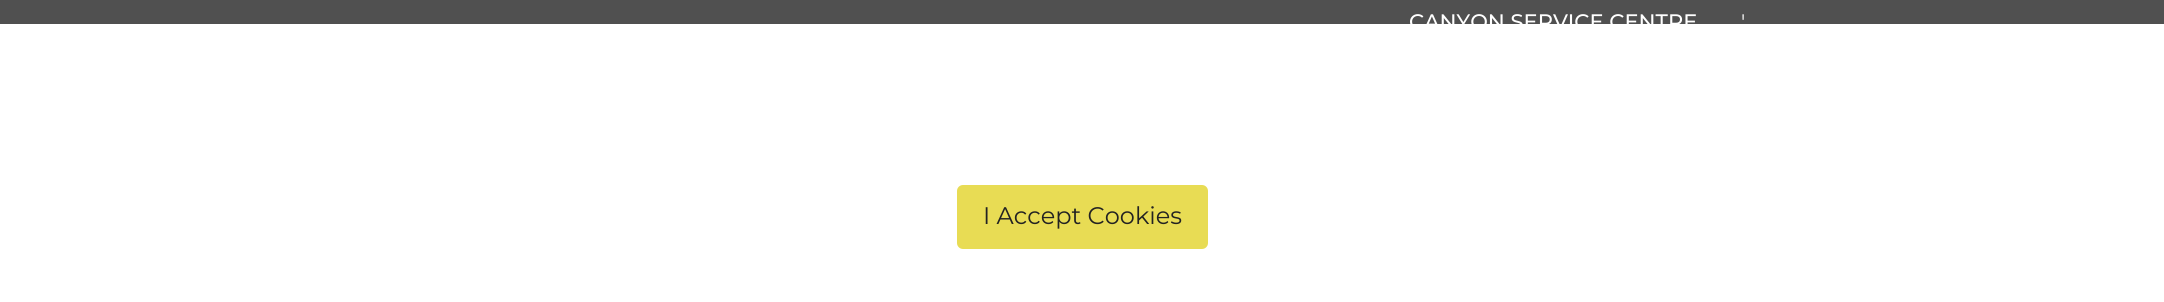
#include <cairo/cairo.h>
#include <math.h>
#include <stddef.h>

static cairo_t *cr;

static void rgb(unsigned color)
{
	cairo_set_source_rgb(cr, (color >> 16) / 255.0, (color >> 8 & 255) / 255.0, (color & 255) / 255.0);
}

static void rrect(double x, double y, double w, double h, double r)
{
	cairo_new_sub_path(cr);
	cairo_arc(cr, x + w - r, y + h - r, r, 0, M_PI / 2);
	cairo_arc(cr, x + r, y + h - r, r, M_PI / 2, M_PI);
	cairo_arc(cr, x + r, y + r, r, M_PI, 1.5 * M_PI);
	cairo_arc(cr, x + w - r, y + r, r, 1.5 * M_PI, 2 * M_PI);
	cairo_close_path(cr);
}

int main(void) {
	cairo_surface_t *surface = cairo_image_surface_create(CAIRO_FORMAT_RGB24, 2164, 302);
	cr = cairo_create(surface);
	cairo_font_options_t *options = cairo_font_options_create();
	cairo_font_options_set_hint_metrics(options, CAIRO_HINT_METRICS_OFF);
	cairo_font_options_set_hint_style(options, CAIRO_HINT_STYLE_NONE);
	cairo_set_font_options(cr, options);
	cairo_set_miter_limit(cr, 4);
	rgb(0x505050);
	cairo_paint(cr);
	rgb(0xffffff);
	cairo_rectangle(cr, 0, 24, 2164, 278);
	cairo_fill(cr);
	rgb(0xe8dc54);
	rrect(958, 186, 249, 62, 5);
	cairo_fill_preserve(cr);
	cairo_stroke(cr);
	cairo_select_font_face(cr, "Montserrat Medium", CAIRO_FONT_SLANT_NORMAL, CAIRO_FONT_WEIGHT_NORMAL);
	cairo_set_font_size(cr, 21);
	rgb(0xffffff);
	cairo_move_to(cr, 1409, 29);
	cairo_show_text(cr, "CANYON SERVICE CENTRE");
	cairo_select_font_face(cr, "Montserrat", CAIRO_FONT_SLANT_NORMAL, CAIRO_FONT_WEIGHT_NORMAL);
	cairo_move_to(cr, 1741, 29);
	cairo_show_text(cr, "'");
	cairo_set_font_size(cr, 24);
	rgb(0x222222);
	cairo_move_to(cr, 983, 224);
	cairo_show_text(cr, "I Accept Cookies");
	cairo_surface_write_to_png(surface, "page.png");
	cairo_font_options_destroy(options);
	cairo_destroy(cr);
	cairo_surface_destroy(surface);
	return 0;
}
